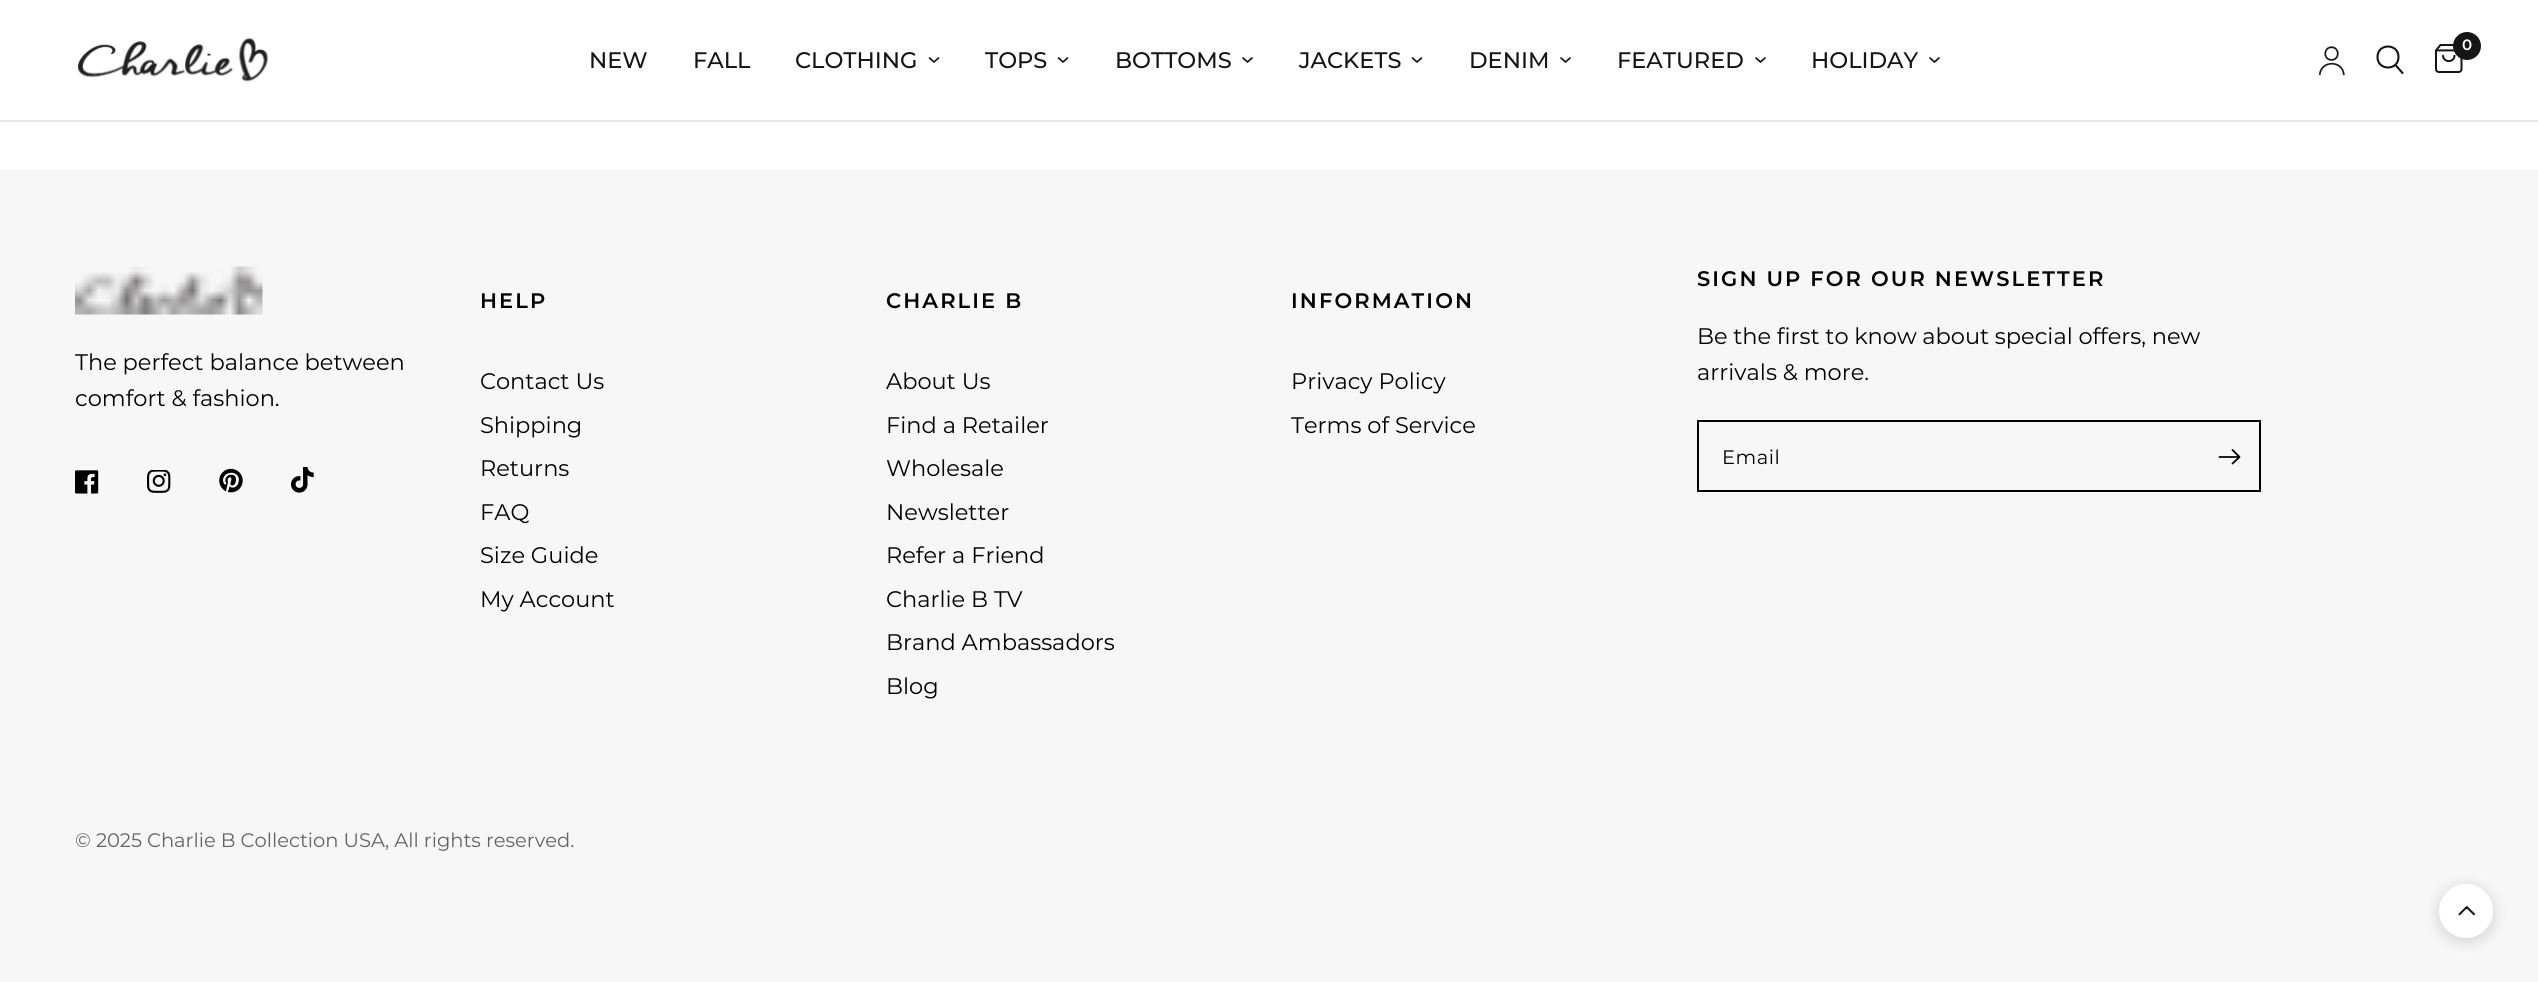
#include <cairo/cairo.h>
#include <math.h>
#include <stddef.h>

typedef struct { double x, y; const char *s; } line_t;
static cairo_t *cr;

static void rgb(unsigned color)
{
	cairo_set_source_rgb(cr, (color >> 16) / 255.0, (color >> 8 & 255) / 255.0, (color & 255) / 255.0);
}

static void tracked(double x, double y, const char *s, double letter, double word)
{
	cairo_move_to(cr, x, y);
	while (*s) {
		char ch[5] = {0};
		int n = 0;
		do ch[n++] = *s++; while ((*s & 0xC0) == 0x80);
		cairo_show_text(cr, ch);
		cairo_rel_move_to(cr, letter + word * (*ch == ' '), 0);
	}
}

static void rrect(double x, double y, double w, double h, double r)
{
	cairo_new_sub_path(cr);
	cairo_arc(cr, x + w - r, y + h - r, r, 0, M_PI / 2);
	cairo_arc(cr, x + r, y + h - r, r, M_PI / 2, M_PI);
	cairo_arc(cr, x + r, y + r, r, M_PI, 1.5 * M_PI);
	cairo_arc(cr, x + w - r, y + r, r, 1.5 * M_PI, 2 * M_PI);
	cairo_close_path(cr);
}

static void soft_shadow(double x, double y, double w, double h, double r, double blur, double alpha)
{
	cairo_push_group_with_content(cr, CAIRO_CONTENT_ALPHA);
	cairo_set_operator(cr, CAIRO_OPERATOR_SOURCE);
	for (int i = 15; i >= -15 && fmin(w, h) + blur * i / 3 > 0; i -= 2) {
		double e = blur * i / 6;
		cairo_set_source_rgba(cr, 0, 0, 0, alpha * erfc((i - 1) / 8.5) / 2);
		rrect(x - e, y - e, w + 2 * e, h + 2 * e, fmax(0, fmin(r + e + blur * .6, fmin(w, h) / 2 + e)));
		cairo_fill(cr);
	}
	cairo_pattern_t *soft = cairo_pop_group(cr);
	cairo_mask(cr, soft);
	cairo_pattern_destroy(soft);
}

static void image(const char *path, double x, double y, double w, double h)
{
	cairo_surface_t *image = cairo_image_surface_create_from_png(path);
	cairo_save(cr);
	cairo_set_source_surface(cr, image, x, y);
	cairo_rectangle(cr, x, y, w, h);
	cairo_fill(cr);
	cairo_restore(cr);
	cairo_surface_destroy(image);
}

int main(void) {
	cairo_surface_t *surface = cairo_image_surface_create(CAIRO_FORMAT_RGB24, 2538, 982);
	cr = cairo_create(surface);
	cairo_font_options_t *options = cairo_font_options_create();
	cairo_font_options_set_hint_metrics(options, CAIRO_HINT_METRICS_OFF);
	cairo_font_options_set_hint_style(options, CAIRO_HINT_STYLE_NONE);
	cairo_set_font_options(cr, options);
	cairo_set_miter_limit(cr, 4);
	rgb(0xffffff);
	cairo_paint(cr);
	rgb(0xe6e6e6);
	cairo_rectangle(cr, 0, 120, 2538, 2);
	cairo_fill(cr);
	image("img/1.png", 77, 38, 192, 44);
	image("img/2.png", 2318, 46, 27, 30);
	cairo_new_path(cr);
	cairo_move_to(cr, 2395.5, 65);
	cairo_line_to(cr, 2402.5, 73);
	cairo_move_to(cr, 2398.5, 57);
	cairo_curve_to(cr, 2398.5, 71, 2377.5, 71, 2377.5, 57);
	cairo_curve_to(cr, 2377.5, 43, 2398.5, 43, 2398.5, 57);
	cairo_close_path(cr);
	rgb(0x151515);
	cairo_set_line_width(cr, 2.1);
	cairo_set_line_cap(cr, CAIRO_LINE_CAP_ROUND);
	cairo_set_line_join(cr, CAIRO_LINE_JOIN_ROUND);
	cairo_stroke(cr);
	image("img/3.png", 2435, 44, 28, 29);
	cairo_arc(cr, 2467, 46, 14, 0, 2 * M_PI);
	cairo_fill(cr);
	cairo_new_path(cr);
	cairo_move_to(cr, 938.5, 58);
	cairo_line_to(cr, 934, 62);
	cairo_line_to(cr, 929.5, 58);
	cairo_set_line_width(cr, 1.7);
	cairo_stroke(cr);
	cairo_new_path(cr);
	cairo_move_to(cr, 1067.5, 58);
	cairo_line_to(cr, 1063, 62);
	cairo_line_to(cr, 1058.5, 58);
	cairo_stroke(cr);
	cairo_new_path(cr);
	cairo_move_to(cr, 1252, 58);
	cairo_line_to(cr, 1247.5, 62);
	cairo_line_to(cr, 1243, 58);
	cairo_stroke(cr);
	cairo_new_path(cr);
	cairo_move_to(cr, 1421.5, 58);
	cairo_line_to(cr, 1417, 62);
	cairo_line_to(cr, 1412.5, 58);
	cairo_stroke(cr);
	cairo_new_path(cr);
	cairo_move_to(cr, 1570, 58);
	cairo_line_to(cr, 1565.5, 62);
	cairo_line_to(cr, 1561, 58);
	cairo_stroke(cr);
	cairo_new_path(cr);
	cairo_move_to(cr, 1765, 58);
	cairo_line_to(cr, 1760.5, 62);
	cairo_line_to(cr, 1756, 58);
	cairo_stroke(cr);
	cairo_new_path(cr);
	cairo_move_to(cr, 1939, 58);
	cairo_line_to(cr, 1934.5, 62);
	cairo_line_to(cr, 1930, 58);
	cairo_stroke(cr);
	rgb(0xf7f7f7);
	cairo_rectangle(cr, 0, 170, 2538, 812);
	cairo_fill(cr);
	image("img/4.png", 75, 266, 188, 49);
	image("img/5.png", 75, 470, 24, 24);
	image("img/6.png", 147, 470, 24, 23);
	image("img/7.png", 219, 468, 24, 25);
	image("img/8.png", 291, 467, 23, 26);
	cairo_rectangle(cr, 1698, 421, 562, 70);
	rgb(0x000000);
	cairo_set_line_width(cr, 2);
	cairo_set_line_cap(cr, CAIRO_LINE_CAP_BUTT);
	cairo_set_line_join(cr, CAIRO_LINE_JOIN_MITER);
	cairo_stroke(cr);
	cairo_new_path(cr);
	cairo_move_to(cr, 2219.5, 457);
	cairo_line_to(cr, 2237.5, 457);
	cairo_move_to(cr, 2232.5, 450);
	cairo_line_to(cr, 2239.5, 457);
	cairo_line_to(cr, 2232.5, 463.5);
	cairo_set_line_width(cr, 1.8);
	cairo_set_line_cap(cr, CAIRO_LINE_CAP_ROUND);
	cairo_set_line_join(cr, CAIRO_LINE_JOIN_ROUND);
	cairo_stroke(cr);
	rgb(0x000000);
	soft_shadow(2439, 887, 54, 54, 27, 7.5, 0.15);
	rgb(0xffffff);
	cairo_arc(cr, 2466, 911, 27, 0, 2 * M_PI);
	cairo_fill(cr);
	image("img/9.png", 2458, 906, 17, 10);
	cairo_select_font_face(cr, "Montserrat SemiBold", CAIRO_FONT_SLANT_NORMAL, CAIRO_FONT_WEIGHT_NORMAL);
	cairo_set_font_size(cr, 15);
	cairo_move_to(cr, 2462, 50);
	cairo_show_text(cr, "0");
	cairo_select_font_face(cr, "Montserrat Medium", CAIRO_FONT_SLANT_NORMAL, CAIRO_FONT_WEIGHT_NORMAL);
	cairo_set_font_size(cr, 22.5);
	rgb(0x151515);
	{
		static const line_t items[] = {
			{589, 68, "NEW"},
			{693, 68, "FALL"},
			{795, 68, "CLOTHING"},
			{985, 68, "TOPS"},
			{1115, 68, "BOTTOMS"},
			{1299, 68, "JACKETS"},
			{1469, 68, "DENIM"},
			{1617, 68, "FEATURED"},
			{1811, 68, "HOLIDAY"},
		};
		for (size_t i = 0; i < sizeof items / sizeof *items; i++) {
			cairo_move_to(cr, items[i].x, items[i].y);
			cairo_show_text(cr, items[i].s);
		}
	}
	cairo_select_font_face(cr, "Montserrat", CAIRO_FONT_SLANT_NORMAL, CAIRO_FONT_WEIGHT_NORMAL);
	rgb(0x000000);
	cairo_move_to(cr, 75, 370);
	cairo_show_text(cr, "The perfect balance between");
	cairo_move_to(cr, 75, 406);
	cairo_show_text(cr, "comfort & fashion.");
	cairo_select_font_face(cr, "Montserrat SemiBold", CAIRO_FONT_SLANT_NORMAL, CAIRO_FONT_WEIGHT_NORMAL);
	cairo_set_font_size(cr, 21);
	tracked(480, 308, "HELP", 2.1, 0);
	cairo_select_font_face(cr, "Montserrat", CAIRO_FONT_SLANT_NORMAL, CAIRO_FONT_WEIGHT_NORMAL);
	cairo_set_font_size(cr, 22.5);
	{
		static const line_t items[] = {
			{480, 389, "Contact Us"},
			{480, 433, "Shipping"},
			{480, 476, "Returns"},
			{480, 520, "FAQ"},
			{480, 563, "Size Guide"},
			{480, 607, "My Account"},
		};
		for (size_t i = 0; i < sizeof items / sizeof *items; i++) {
			cairo_move_to(cr, items[i].x, items[i].y);
			cairo_show_text(cr, items[i].s);
		}
	}
	cairo_select_font_face(cr, "Montserrat SemiBold", CAIRO_FONT_SLANT_NORMAL, CAIRO_FONT_WEIGHT_NORMAL);
	cairo_set_font_size(cr, 21);
	tracked(886, 308, "CHARLIE B", 2.1, 0);
	cairo_select_font_face(cr, "Montserrat", CAIRO_FONT_SLANT_NORMAL, CAIRO_FONT_WEIGHT_NORMAL);
	cairo_set_font_size(cr, 22.5);
	{
		static const line_t items[] = {
			{886, 389, "About Us"},
			{886, 433, "Find a Retailer"},
			{886, 476, "Wholesale"},
			{886, 520, "Newsletter"},
			{886, 563, "Refer a Friend"},
			{886, 607, "Charlie B TV"},
			{886, 650, "Brand Ambassadors"},
			{886, 694, "Blog"},
		};
		for (size_t i = 0; i < sizeof items / sizeof *items; i++) {
			cairo_move_to(cr, items[i].x, items[i].y);
			cairo_show_text(cr, items[i].s);
		}
	}
	cairo_select_font_face(cr, "Montserrat SemiBold", CAIRO_FONT_SLANT_NORMAL, CAIRO_FONT_WEIGHT_NORMAL);
	cairo_set_font_size(cr, 21);
	tracked(1291, 308, "INFORMATION", 2.1, 0);
	cairo_select_font_face(cr, "Montserrat", CAIRO_FONT_SLANT_NORMAL, CAIRO_FONT_WEIGHT_NORMAL);
	cairo_set_font_size(cr, 22.5);
	cairo_move_to(cr, 1291, 389);
	cairo_show_text(cr, "Privacy Policy");
	cairo_move_to(cr, 1291, 433);
	cairo_show_text(cr, "Terms of Service");
	cairo_select_font_face(cr, "Montserrat SemiBold", CAIRO_FONT_SLANT_NORMAL, CAIRO_FONT_WEIGHT_NORMAL);
	cairo_set_font_size(cr, 21);
	tracked(1697, 286, "SIGN UP FOR OUR NEWSLETTER", 2.1, 0);
	cairo_select_font_face(cr, "Montserrat", CAIRO_FONT_SLANT_NORMAL, CAIRO_FONT_WEIGHT_NORMAL);
	cairo_set_font_size(cr, 22.5);
	tracked(1697, 344, "Be the first to know about special offers, new", 0, -0.25);
	cairo_move_to(cr, 1697, 380);
	cairo_show_text(cr, "arrivals & more.");
	cairo_set_font_size(cr, 19.5);
	tracked(1722, 464, "Email", 0.5, 0);
	rgb(0x636363);
	cairo_move_to(cr, 75, 847);
	cairo_show_text(cr, "© 2025 Charlie B Collection USA, All rights reserved.");
	cairo_surface_write_to_png(surface, "page.png");
	cairo_font_options_destroy(options);
	cairo_destroy(cr);
	cairo_surface_destroy(surface);
	return 0;
}
